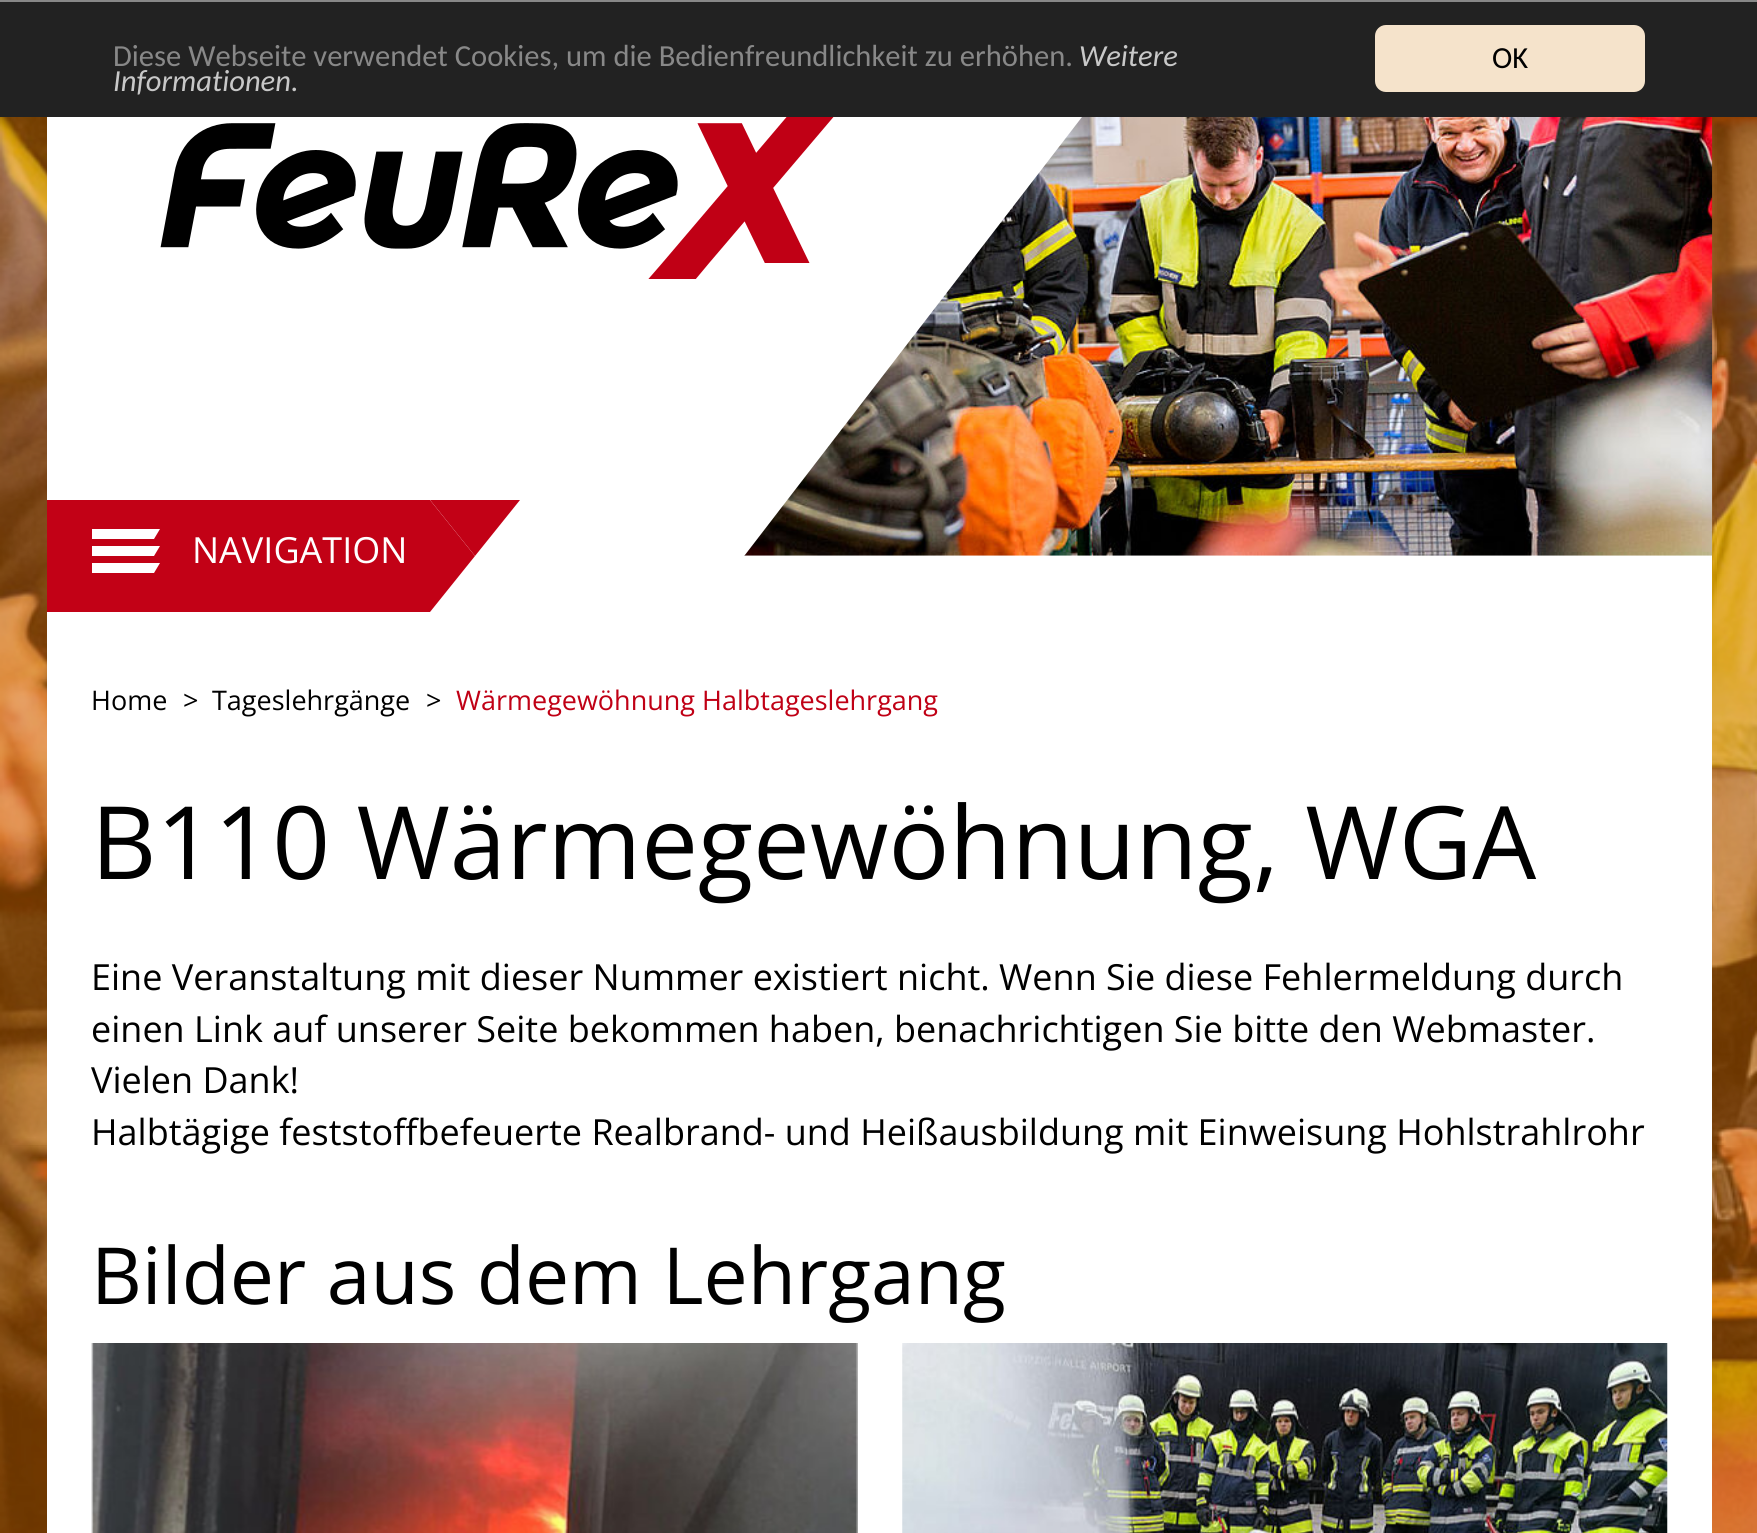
#include <cairo/cairo.h>
#include <math.h>
#include <stddef.h>

typedef struct { double x, y; const char *s; } line_t;
static cairo_t *cr;

static void rgb(unsigned color)
{
	cairo_set_source_rgb(cr, (color >> 16) / 255.0, (color >> 8 & 255) / 255.0, (color & 255) / 255.0);
}

static void rrect(double x, double y, double w, double h, double r)
{
	cairo_new_sub_path(cr);
	cairo_arc(cr, x + w - r, y + h - r, r, 0, M_PI / 2);
	cairo_arc(cr, x + r, y + h - r, r, M_PI / 2, M_PI);
	cairo_arc(cr, x + r, y + r, r, M_PI, 1.5 * M_PI);
	cairo_arc(cr, x + w - r, y + r, r, 1.5 * M_PI, 2 * M_PI);
	cairo_close_path(cr);
}

static void image(const char *path, double x, double y, double w, double h)
{
	cairo_surface_t *image = cairo_image_surface_create_from_png(path);
	cairo_save(cr);
	cairo_set_source_surface(cr, image, x, y);
	cairo_rectangle(cr, x, y, w, h);
	cairo_fill(cr);
	cairo_restore(cr);
	cairo_surface_destroy(image);
}

int main(void) {
	cairo_surface_t *surface = cairo_image_surface_create(CAIRO_FORMAT_RGB24, 1757, 1533);
	cr = cairo_create(surface);
	cairo_font_options_t *options = cairo_font_options_create();
	cairo_font_options_set_hint_metrics(options, CAIRO_HINT_METRICS_OFF);
	cairo_font_options_set_hint_style(options, CAIRO_HINT_STYLE_NONE);
	cairo_set_font_options(cr, options);
	cairo_set_miter_limit(cr, 4);
	rgb(0xffffff);
	cairo_paint(cr);
	image("img/1.png", 0, 117, 1757, 1416);
	rgb(0xffffff);
	cairo_rectangle(cr, 47, 555, 1665, 978);
	cairo_fill(cr);
	image("img/3.png", 744, 117, 969, 439);
	cairo_save(cr);
	cairo_rectangle(cr, 47, 0, 1665, 556);
	cairo_clip(cr);
	cairo_new_path(cr);
	cairo_move_to(cr, 47, 0);
	cairo_line_to(cr, 1172, 0);
	cairo_line_to(cr, 47, 1462);
	cairo_close_path(cr);
	cairo_fill(cr);
	cairo_restore(cr);
	rgb(0x222222);
	cairo_rectangle(cr, 0, 2, 1757, 115);
	cairo_fill(cr);
	rgb(0x888888);
	cairo_rectangle(cr, 0, 0, 1757, 2);
	cairo_fill(cr);
	rgb(0xf5e3cb);
	rrect(1375, 25, 270, 67, 11);
	cairo_fill(cr);
	image("img/2.png", 160, 117, 674, 162);
	rgb(0xc20116);
	cairo_rectangle(cr, 47, 500, 383, 112);
	cairo_fill(cr);
	rgb(0xffffff);
	cairo_new_path(cr);
	cairo_move_to(cr, 154, 539);
	cairo_line_to(cr, 92, 539);
	cairo_line_to(cr, 92, 529);
	cairo_line_to(cr, 160, 529);
	cairo_close_path(cr);
	cairo_fill(cr);
	cairo_new_path(cr);
	cairo_move_to(cr, 154, 556);
	cairo_line_to(cr, 92, 556);
	cairo_line_to(cr, 92, 546);
	cairo_line_to(cr, 160, 546);
	cairo_close_path(cr);
	cairo_fill(cr);
	cairo_new_path(cr);
	cairo_move_to(cr, 154, 573);
	cairo_line_to(cr, 92, 573);
	cairo_line_to(cr, 92, 563);
	cairo_line_to(cr, 160, 563);
	cairo_close_path(cr);
	cairo_fill(cr);
	rgb(0xc20116);
	cairo_new_path(cr);
	cairo_move_to(cr, 430, 500);
	cairo_line_to(cr, 520, 500);
	cairo_line_to(cr, 475, 556);
	cairo_close_path(cr);
	cairo_fill(cr);
	cairo_new_path(cr);
	cairo_move_to(cr, 430, 612);
	cairo_line_to(cr, 430, 500);
	cairo_line_to(cr, 475, 556);
	cairo_close_path(cr);
	cairo_fill(cr);
	image("img/4.png", 91, 1343, 767, 190);
	image("img/5.png", 902, 1343, 766, 190);
	cairo_select_font_face(cr, "Carlito", CAIRO_FONT_SLANT_NORMAL, CAIRO_FONT_WEIGHT_NORMAL);
	cairo_set_font_size(cr, 30.6);
	rgb(0x888888);
	cairo_move_to(cr, 113, 66);
	cairo_show_text(cr, "Diese Webseite verwendet Cookies, um die Bedienfreundlichkeit zu erhöhen.");
	cairo_select_font_face(cr, "Carlito", CAIRO_FONT_SLANT_ITALIC, CAIRO_FONT_WEIGHT_NORMAL);
	rgb(0xc8c8c8);
	cairo_move_to(cr, 1079, 66);
	cairo_show_text(cr, "Weitere");
	cairo_move_to(cr, 113, 91);
	cairo_show_text(cr, "Informationen.");
	cairo_select_font_face(cr, "Carlito", CAIRO_FONT_SLANT_NORMAL, CAIRO_FONT_WEIGHT_NORMAL);
	rgb(0x000000);
	cairo_move_to(cr, 1492, 68);
	cairo_show_text(cr, "OK");
	cairo_select_font_face(cr, "Open Sans", CAIRO_FONT_SLANT_NORMAL, CAIRO_FONT_WEIGHT_NORMAL);
	cairo_set_font_size(cr, 36);
	rgb(0xffffff);
	cairo_move_to(cr, 192, 563);
	cairo_show_text(cr, "NAVIGATION");
	cairo_set_font_size(cr, 27);
	rgb(0x000000);
	{
		static const line_t items[] = {
			{91, 710, "Home"},
			{183, 710, ">"},
			{212, 710, "Tageslehrgänge"},
			{426, 710, ">"},
		};
		for (size_t i = 0; i < sizeof items / sizeof *items; i++) {
			cairo_move_to(cr, items[i].x, items[i].y);
			cairo_show_text(cr, items[i].s);
		}
	}
	rgb(0xc00015);
	cairo_move_to(cr, 456, 710);
	cairo_show_text(cr, "Wärmegewöhnung Halbtageslehrgang");
	cairo_set_font_size(cr, 101.25);
	rgb(0x000000);
	cairo_move_to(cr, 91, 879);
	cairo_show_text(cr, "B110 Wärmegewöhnung, WGA");
	cairo_set_font_size(cr, 36);
	{
		static const line_t items[] = {
			{91, 990, "Eine Veranstaltung mit dieser Nummer existiert nicht. Wenn Sie diese Fehlermeldung durch"},
			{91, 1042, "einen Link auf unserer Seite bekommen haben, benachrichtigen Sie bitte den Webmaster."},
			{91, 1093, "Vielen Dank!"},
			{91, 1145, "Halbtägige feststoffbefeuerte Realbrand- und Heißausbildung mit Einweisung Hohlstrahlrohr"},
		};
		for (size_t i = 0; i < sizeof items / sizeof *items; i++) {
			cairo_move_to(cr, items[i].x, items[i].y);
			cairo_show_text(cr, items[i].s);
		}
	}
	cairo_set_font_size(cr, 78.75);
	cairo_move_to(cr, 91, 1304);
	cairo_show_text(cr, "Bilder aus dem Lehrgang");
	cairo_surface_write_to_png(surface, "page.png");
	cairo_font_options_destroy(options);
	cairo_destroy(cr);
	cairo_surface_destroy(surface);
	return 0;
}
